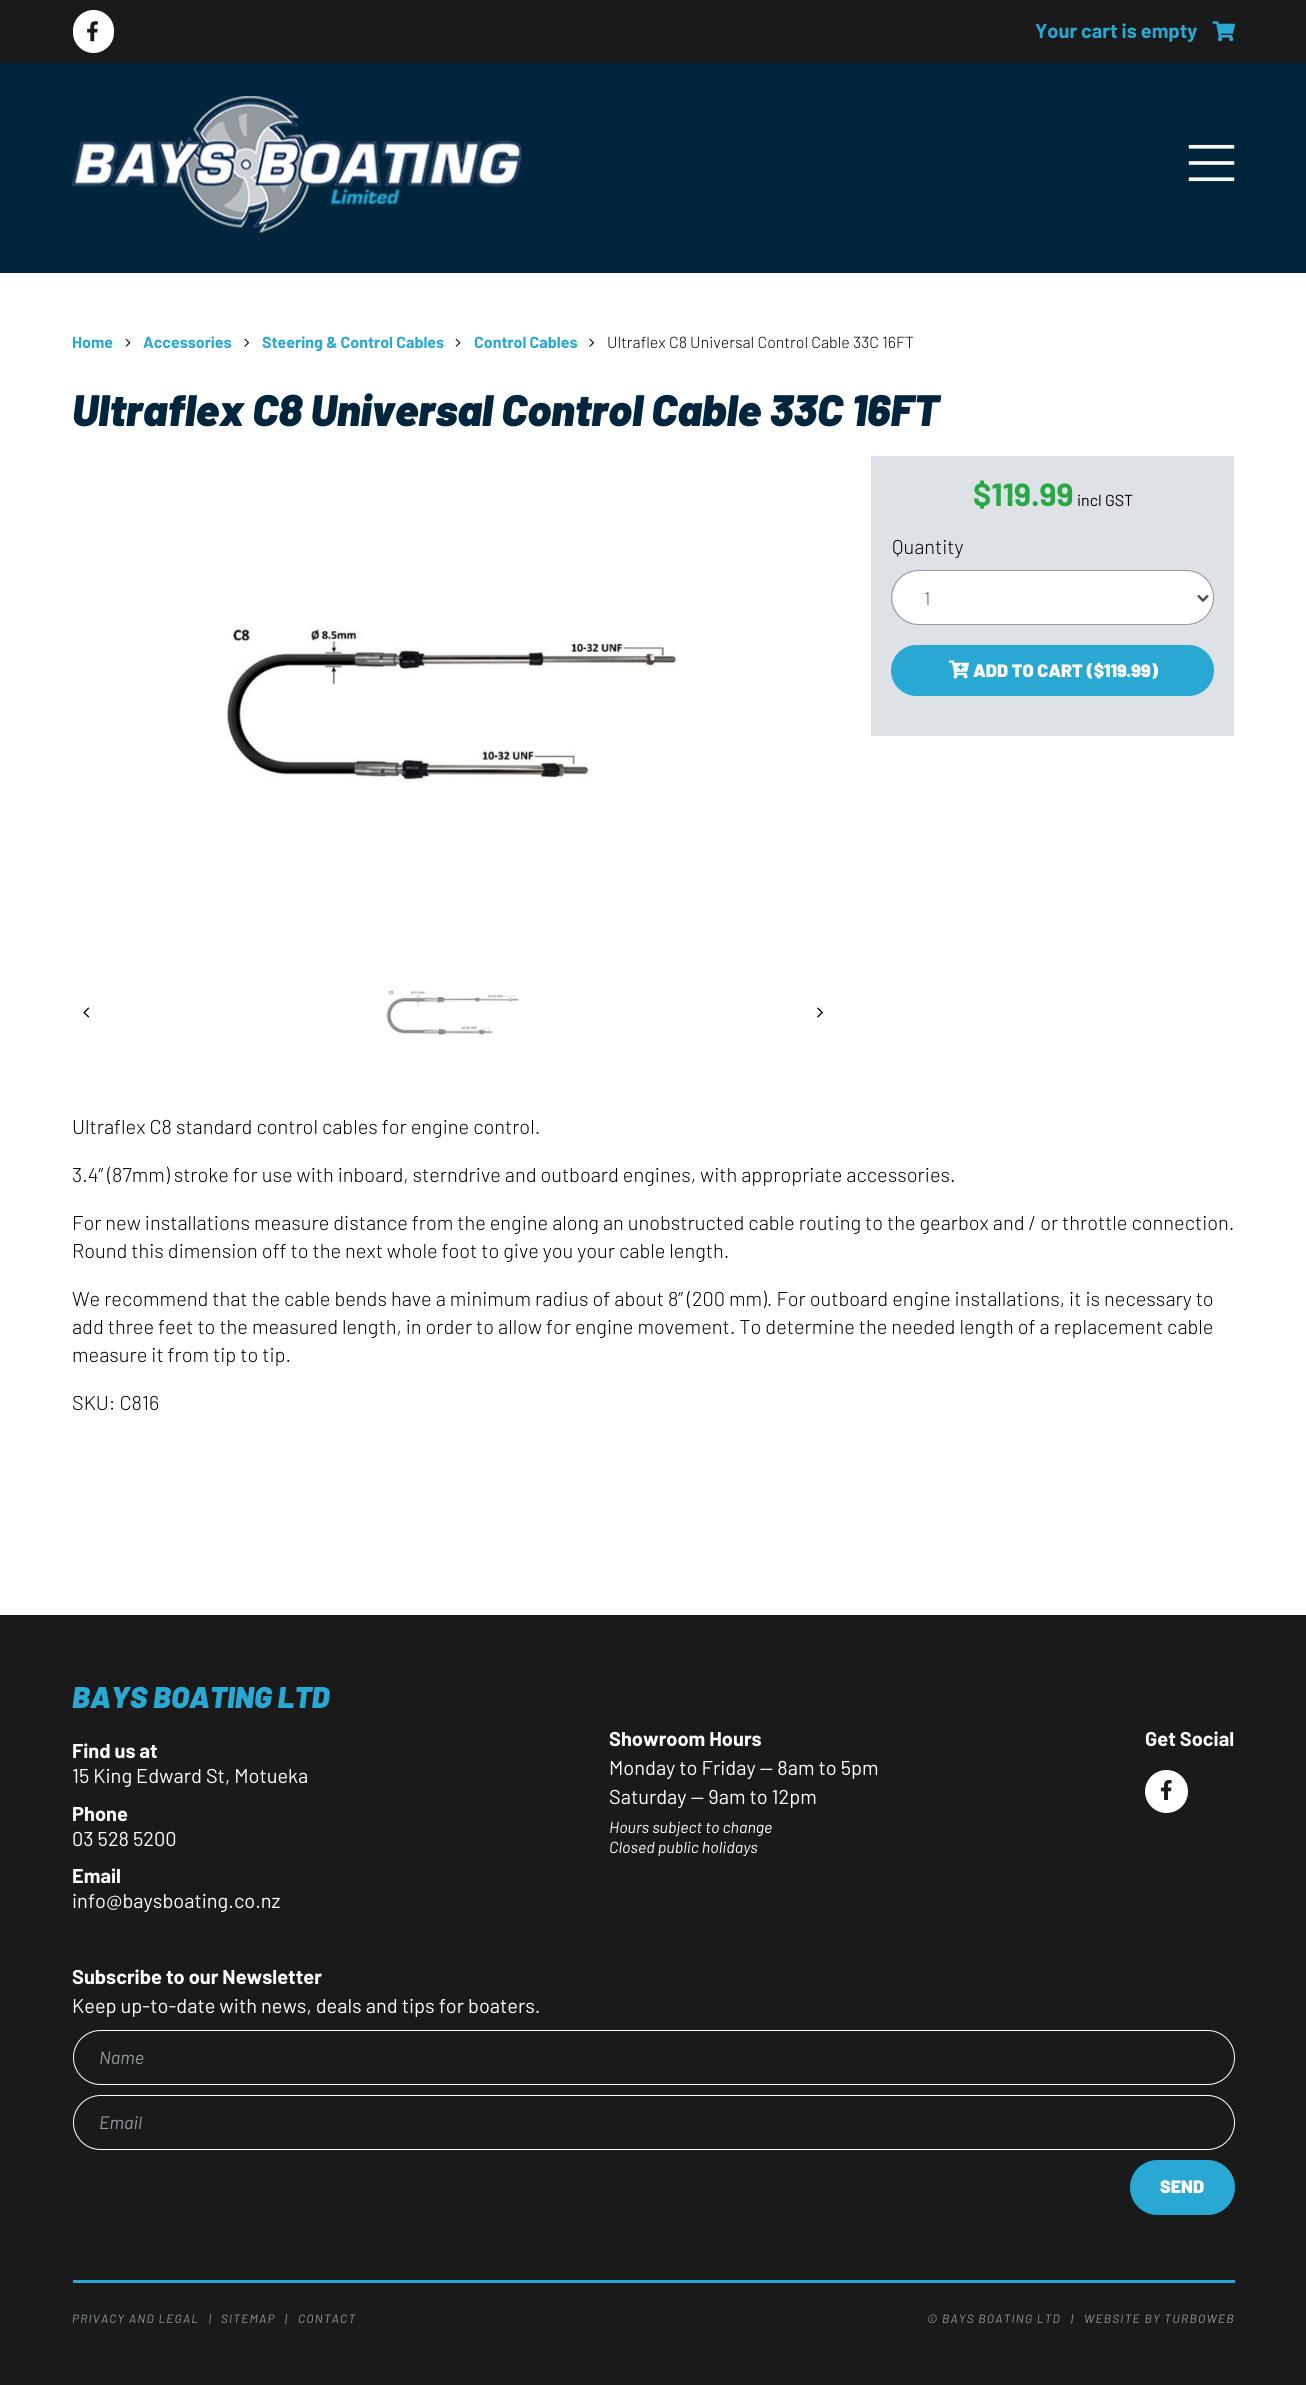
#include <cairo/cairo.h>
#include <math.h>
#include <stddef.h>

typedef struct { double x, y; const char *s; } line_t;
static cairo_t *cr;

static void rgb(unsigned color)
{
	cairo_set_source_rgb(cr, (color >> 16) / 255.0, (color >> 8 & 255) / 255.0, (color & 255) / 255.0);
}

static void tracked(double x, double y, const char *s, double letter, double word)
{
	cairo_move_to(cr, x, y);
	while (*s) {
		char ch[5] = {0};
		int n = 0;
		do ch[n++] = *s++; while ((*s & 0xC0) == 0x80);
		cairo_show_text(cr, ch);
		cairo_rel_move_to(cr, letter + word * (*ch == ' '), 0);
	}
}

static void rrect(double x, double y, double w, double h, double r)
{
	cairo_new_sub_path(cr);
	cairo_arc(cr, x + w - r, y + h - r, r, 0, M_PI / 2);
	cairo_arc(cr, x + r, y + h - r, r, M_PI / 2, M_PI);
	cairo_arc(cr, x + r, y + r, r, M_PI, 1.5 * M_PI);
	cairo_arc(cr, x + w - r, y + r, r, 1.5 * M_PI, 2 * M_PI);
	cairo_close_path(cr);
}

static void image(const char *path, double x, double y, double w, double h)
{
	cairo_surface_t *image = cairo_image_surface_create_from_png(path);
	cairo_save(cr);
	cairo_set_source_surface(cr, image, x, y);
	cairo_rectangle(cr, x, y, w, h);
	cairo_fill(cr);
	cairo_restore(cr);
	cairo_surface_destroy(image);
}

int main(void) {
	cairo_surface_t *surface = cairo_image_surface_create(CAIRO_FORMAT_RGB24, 1306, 2385);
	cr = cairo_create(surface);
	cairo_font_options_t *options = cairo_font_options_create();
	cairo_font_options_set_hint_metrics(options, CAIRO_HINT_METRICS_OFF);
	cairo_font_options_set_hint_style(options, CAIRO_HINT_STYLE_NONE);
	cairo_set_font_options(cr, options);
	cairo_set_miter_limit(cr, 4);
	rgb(0xffffff);
	cairo_paint(cr);
	rgb(0x00253d);
	cairo_rectangle(cr, 0, 63, 1306, 210);
	cairo_fill(cr);
	rgb(0x1a1a1a);
	cairo_rectangle(cr, 0, 0, 1306, 63);
	cairo_fill(cr);
	rgb(0xffffff);
	rrect(73, 10, 41, 43, 20.5);
	cairo_fill(cr);
	image("img/1.png", 87, 21, 11, 21);
	image("img/2.png", 1212, 21, 23, 21);
	image("img/3.png", 72, 96, 450, 137);
	image("img/4.png", 1188, 144, 47, 38);
	image("img/5.png", 125, 338, 6, 9);
	image("img/6.png", 244, 338, 5, 9);
	image("img/5.png", 455, 338, 6, 9);
	image("img/6.png", 589, 338, 5, 9);
	rgb(0xdee2e6);
	cairo_rectangle(cr, 871, 456, 363, 280);
	cairo_fill(cr);
	rgb(0xffffff);
	rrect(893, 571, 320, 53, 26.5);
	cairo_fill(cr);
	rrect(891.5, 570.5, 322, 54, 27);
	rgb(0x939a9f);
	cairo_set_line_width(cr, 1);
	cairo_stroke(cr);
	cairo_new_path(cr);
	cairo_move_to(cr, 1198, 595.5);
	cairo_line_to(cr, 1203, 600.5);
	cairo_line_to(cr, 1208, 595.5);
	rgb(0x495057);
	cairo_set_line_width(cr, 2.5);
	cairo_stroke(cr);
	rgb(0x28a8d2);
	rrect(892.5, 646.5, 320, 48, 24);
	cairo_fill_preserve(cr);
	cairo_set_line_width(cr, 3);
	cairo_stroke(cr);
	image("img/7.png", 948, 660, 21, 19);
	image("img/8.png", 225, 627, 453, 156);
	image("img/9.png", 83, 1007, 7, 11);
	image("img/10.png", 386, 990, 133, 46);
	image("img/11.png", 817, 1007, 6, 11);
	rgb(0x1a1a1a);
	cairo_rectangle(cr, 0, 1615, 1306, 770);
	cairo_fill(cr);
	rgb(0xffffff);
	cairo_arc(cr, 1166.5, 1791.5, 21.5, 0, 2 * M_PI);
	cairo_fill(cr);
	image("img/12.png", 1160, 1780, 12, 20);
	rrect(73.5, 2030.5, 1161, 54, 27);
	cairo_set_line_width(cr, 1);
	cairo_stroke(cr);
	rrect(73.5, 2095.5, 1161, 54, 27);
	cairo_stroke(cr);
	rgb(0x28a8d2);
	rrect(1131.5, 2161.5, 102, 52, 26);
	cairo_fill_preserve(cr);
	cairo_set_line_width(cr, 3);
	cairo_stroke(cr);
	cairo_rectangle(cr, 73, 2280, 1162, 3);
	cairo_fill(cr);
	cairo_select_font_face(cr, "Barlow", CAIRO_FONT_SLANT_NORMAL, CAIRO_FONT_WEIGHT_BOLD);
	cairo_set_font_size(cr, 20);
	cairo_move_to(cr, 1035, 38);
	cairo_show_text(cr, "Your cart is empty");
	cairo_set_font_size(cr, 16);
	{
		static const line_t items[] = {
			{72, 348, "Home"},
			{143, 348, "Accessories"},
			{262, 348, "Steering & Control Cables"},
			{474, 348, "Control Cables"},
		};
		for (size_t i = 0; i < sizeof items / sizeof *items; i++) {
			cairo_move_to(cr, items[i].x, items[i].y);
			cairo_show_text(cr, items[i].s);
		}
	}
	cairo_select_font_face(cr, "Barlow Light", CAIRO_FONT_SLANT_NORMAL, CAIRO_FONT_WEIGHT_NORMAL);
	rgb(0x000000);
	cairo_move_to(cr, 607, 348);
	cairo_show_text(cr, "Ultraflex C8 Universal Control Cable 33C 16FT");
	cairo_select_font_face(cr, "Barlow Black", CAIRO_FONT_SLANT_ITALIC, CAIRO_FONT_WEIGHT_NORMAL);
	cairo_set_font_size(cr, 44);
	rgb(0x00253d);
	cairo_move_to(cr, 72, 426);
	cairo_show_text(cr, "Ultraflex C8 Universal Control Cable 33C 16FT");
	cairo_select_font_face(cr, "Barlow", CAIRO_FONT_SLANT_NORMAL, CAIRO_FONT_WEIGHT_BOLD);
	cairo_set_font_size(cr, 32);
	rgb(0x28a745);
	cairo_move_to(cr, 973, 506);
	cairo_show_text(cr, "$119.99");
	cairo_select_font_face(cr, "Barlow", CAIRO_FONT_SLANT_NORMAL, CAIRO_FONT_WEIGHT_NORMAL);
	cairo_set_font_size(cr, 16);
	rgb(0x000000);
	cairo_move_to(cr, 1077, 506);
	cairo_show_text(cr, "incl GST");
	cairo_select_font_face(cr, "Barlow Light", CAIRO_FONT_SLANT_NORMAL, CAIRO_FONT_WEIGHT_NORMAL);
	cairo_set_font_size(cr, 20);
	cairo_move_to(cr, 892, 554);
	cairo_show_text(cr, "Quantity");
	cairo_set_font_size(cr, 18);
	rgb(0x495057);
	cairo_move_to(cr, 924, 605);
	cairo_show_text(cr, "1");
	cairo_select_font_face(cr, "Barlow Black", CAIRO_FONT_SLANT_NORMAL, CAIRO_FONT_WEIGHT_NORMAL);
	rgb(0xffffff);
	cairo_move_to(cr, 973, 677);
	cairo_show_text(cr, "ADD TO CART ($119.99)");
	cairo_select_font_face(cr, "Barlow Light", CAIRO_FONT_SLANT_NORMAL, CAIRO_FONT_WEIGHT_NORMAL);
	cairo_set_font_size(cr, 20);
	rgb(0x000000);
	{
		static const line_t items[] = {
			{72, 1134, "Ultraflex C8 standard control cables for engine control."},
			{72, 1182, "3.4” (87mm) stroke for use with inboard, sterndrive and outboard engines, with appropriate accessories."},
			{72, 1230, "For new installations measure distance from the engine along an unobstructed cable routing to the gearbox and / or throttle connection."},
			{72, 1258, "Round this dimension off to the next whole foot to give you your cable length."},
			{72, 1306, "We recommend that the cable bends have a minimum radius of about 8” (200 mm). For outboard engine installations, it is necessary to"},
			{72, 1334, "add three feet to the measured length, in order to allow for engine movement. To determine the needed length of a replacement cable"},
			{72, 1362, "measure it from tip to tip."},
			{72, 1410, "SKU: C816"},
		};
		for (size_t i = 0; i < sizeof items / sizeof *items; i++) {
			cairo_move_to(cr, items[i].x, items[i].y);
			cairo_show_text(cr, items[i].s);
		}
	}
	cairo_select_font_face(cr, "Barlow Black", CAIRO_FONT_SLANT_ITALIC, CAIRO_FONT_WEIGHT_NORMAL);
	cairo_set_font_size(cr, 30);
	rgb(0x28a8d2);
	cairo_move_to(cr, 72, 1708);
	cairo_show_text(cr, "BAYS BOATING LTD");
	cairo_select_font_face(cr, "Barlow", CAIRO_FONT_SLANT_NORMAL, CAIRO_FONT_WEIGHT_BOLD);
	cairo_set_font_size(cr, 20);
	rgb(0xffffff);
	cairo_move_to(cr, 609, 1746);
	cairo_show_text(cr, "Showroom Hours");
	cairo_select_font_face(cr, "Barlow", CAIRO_FONT_SLANT_NORMAL, CAIRO_FONT_WEIGHT_NORMAL);
	cairo_move_to(cr, 609, 1775);
	cairo_show_text(cr, "Monday to Friday — 8am to 5pm");
	cairo_move_to(cr, 609, 1804);
	cairo_show_text(cr, "Saturday — 9am to 12pm");
	cairo_select_font_face(cr, "Barlow", CAIRO_FONT_SLANT_ITALIC, CAIRO_FONT_WEIGHT_NORMAL);
	cairo_set_font_size(cr, 16);
	cairo_move_to(cr, 609, 1833);
	cairo_show_text(cr, "Hours subject to change");
	cairo_move_to(cr, 609, 1853);
	cairo_show_text(cr, "Closed public holidays");
	cairo_select_font_face(cr, "Barlow", CAIRO_FONT_SLANT_NORMAL, CAIRO_FONT_WEIGHT_BOLD);
	cairo_set_font_size(cr, 20);
	cairo_move_to(cr, 1145, 1746);
	cairo_show_text(cr, "Get Social");
	cairo_move_to(cr, 72, 1758);
	cairo_show_text(cr, "Find us at");
	cairo_select_font_face(cr, "Barlow", CAIRO_FONT_SLANT_NORMAL, CAIRO_FONT_WEIGHT_NORMAL);
	cairo_move_to(cr, 72, 1783);
	cairo_show_text(cr, "15 King Edward St, Motueka");
	cairo_select_font_face(cr, "Barlow", CAIRO_FONT_SLANT_NORMAL, CAIRO_FONT_WEIGHT_BOLD);
	cairo_move_to(cr, 72, 1821);
	cairo_show_text(cr, "Phone");
	cairo_select_font_face(cr, "Barlow", CAIRO_FONT_SLANT_NORMAL, CAIRO_FONT_WEIGHT_NORMAL);
	cairo_move_to(cr, 72, 1846);
	cairo_show_text(cr, "03 528 5200");
	cairo_select_font_face(cr, "Barlow", CAIRO_FONT_SLANT_NORMAL, CAIRO_FONT_WEIGHT_BOLD);
	cairo_move_to(cr, 72, 1883);
	cairo_show_text(cr, "Email");
	cairo_select_font_face(cr, "Barlow", CAIRO_FONT_SLANT_NORMAL, CAIRO_FONT_WEIGHT_NORMAL);
	cairo_move_to(cr, 72, 1908);
	cairo_show_text(cr, "info@baysboating.co.nz");
	cairo_select_font_face(cr, "Barlow", CAIRO_FONT_SLANT_NORMAL, CAIRO_FONT_WEIGHT_BOLD);
	cairo_move_to(cr, 72, 1984);
	cairo_show_text(cr, "Subscribe to our Newsletter");
	cairo_select_font_face(cr, "Barlow", CAIRO_FONT_SLANT_NORMAL, CAIRO_FONT_WEIGHT_NORMAL);
	cairo_move_to(cr, 72, 2013);
	cairo_show_text(cr, "Keep up-to-date with news, deals and tips for boaters.");
	cairo_select_font_face(cr, "Barlow", CAIRO_FONT_SLANT_ITALIC, CAIRO_FONT_WEIGHT_NORMAL);
	cairo_set_font_size(cr, 18);
	rgb(0x939a9f);
	cairo_move_to(cr, 99, 2064);
	cairo_show_text(cr, "Name");
	cairo_move_to(cr, 99, 2129);
	cairo_show_text(cr, "Email");
	cairo_select_font_face(cr, "Barlow Black", CAIRO_FONT_SLANT_NORMAL, CAIRO_FONT_WEIGHT_NORMAL);
	rgb(0xffffff);
	cairo_move_to(cr, 1160, 2193);
	cairo_show_text(cr, "SEND");
	cairo_select_font_face(cr, "Barlow", CAIRO_FONT_SLANT_ITALIC, CAIRO_FONT_WEIGHT_NORMAL);
	cairo_set_font_size(cr, 12);
	rgb(0x939a9f);
	{
		static const line_t items[] = {
			{72, 2323, "PRIVACY AND LEGAL"},
			{209, 2323, "|"},
			{221, 2323, "SITEMAP"},
			{285, 2323, "|"},
			{298, 2323, "CONTACT"},
			{927, 2323, "© BAYS BOATING LTD"},
			{1071, 2323, "|"},
			{1084, 2323, "WEBSITE BY TURBOWEB"},
		};
		for (size_t i = 0; i < sizeof items / sizeof *items; i++) {
			tracked(items[i].x, items[i].y, items[i].s, 1.25, 0);
		}
	}
	cairo_surface_write_to_png(surface, "page.png");
	cairo_font_options_destroy(options);
	cairo_destroy(cr);
	cairo_surface_destroy(surface);
	return 0;
}
